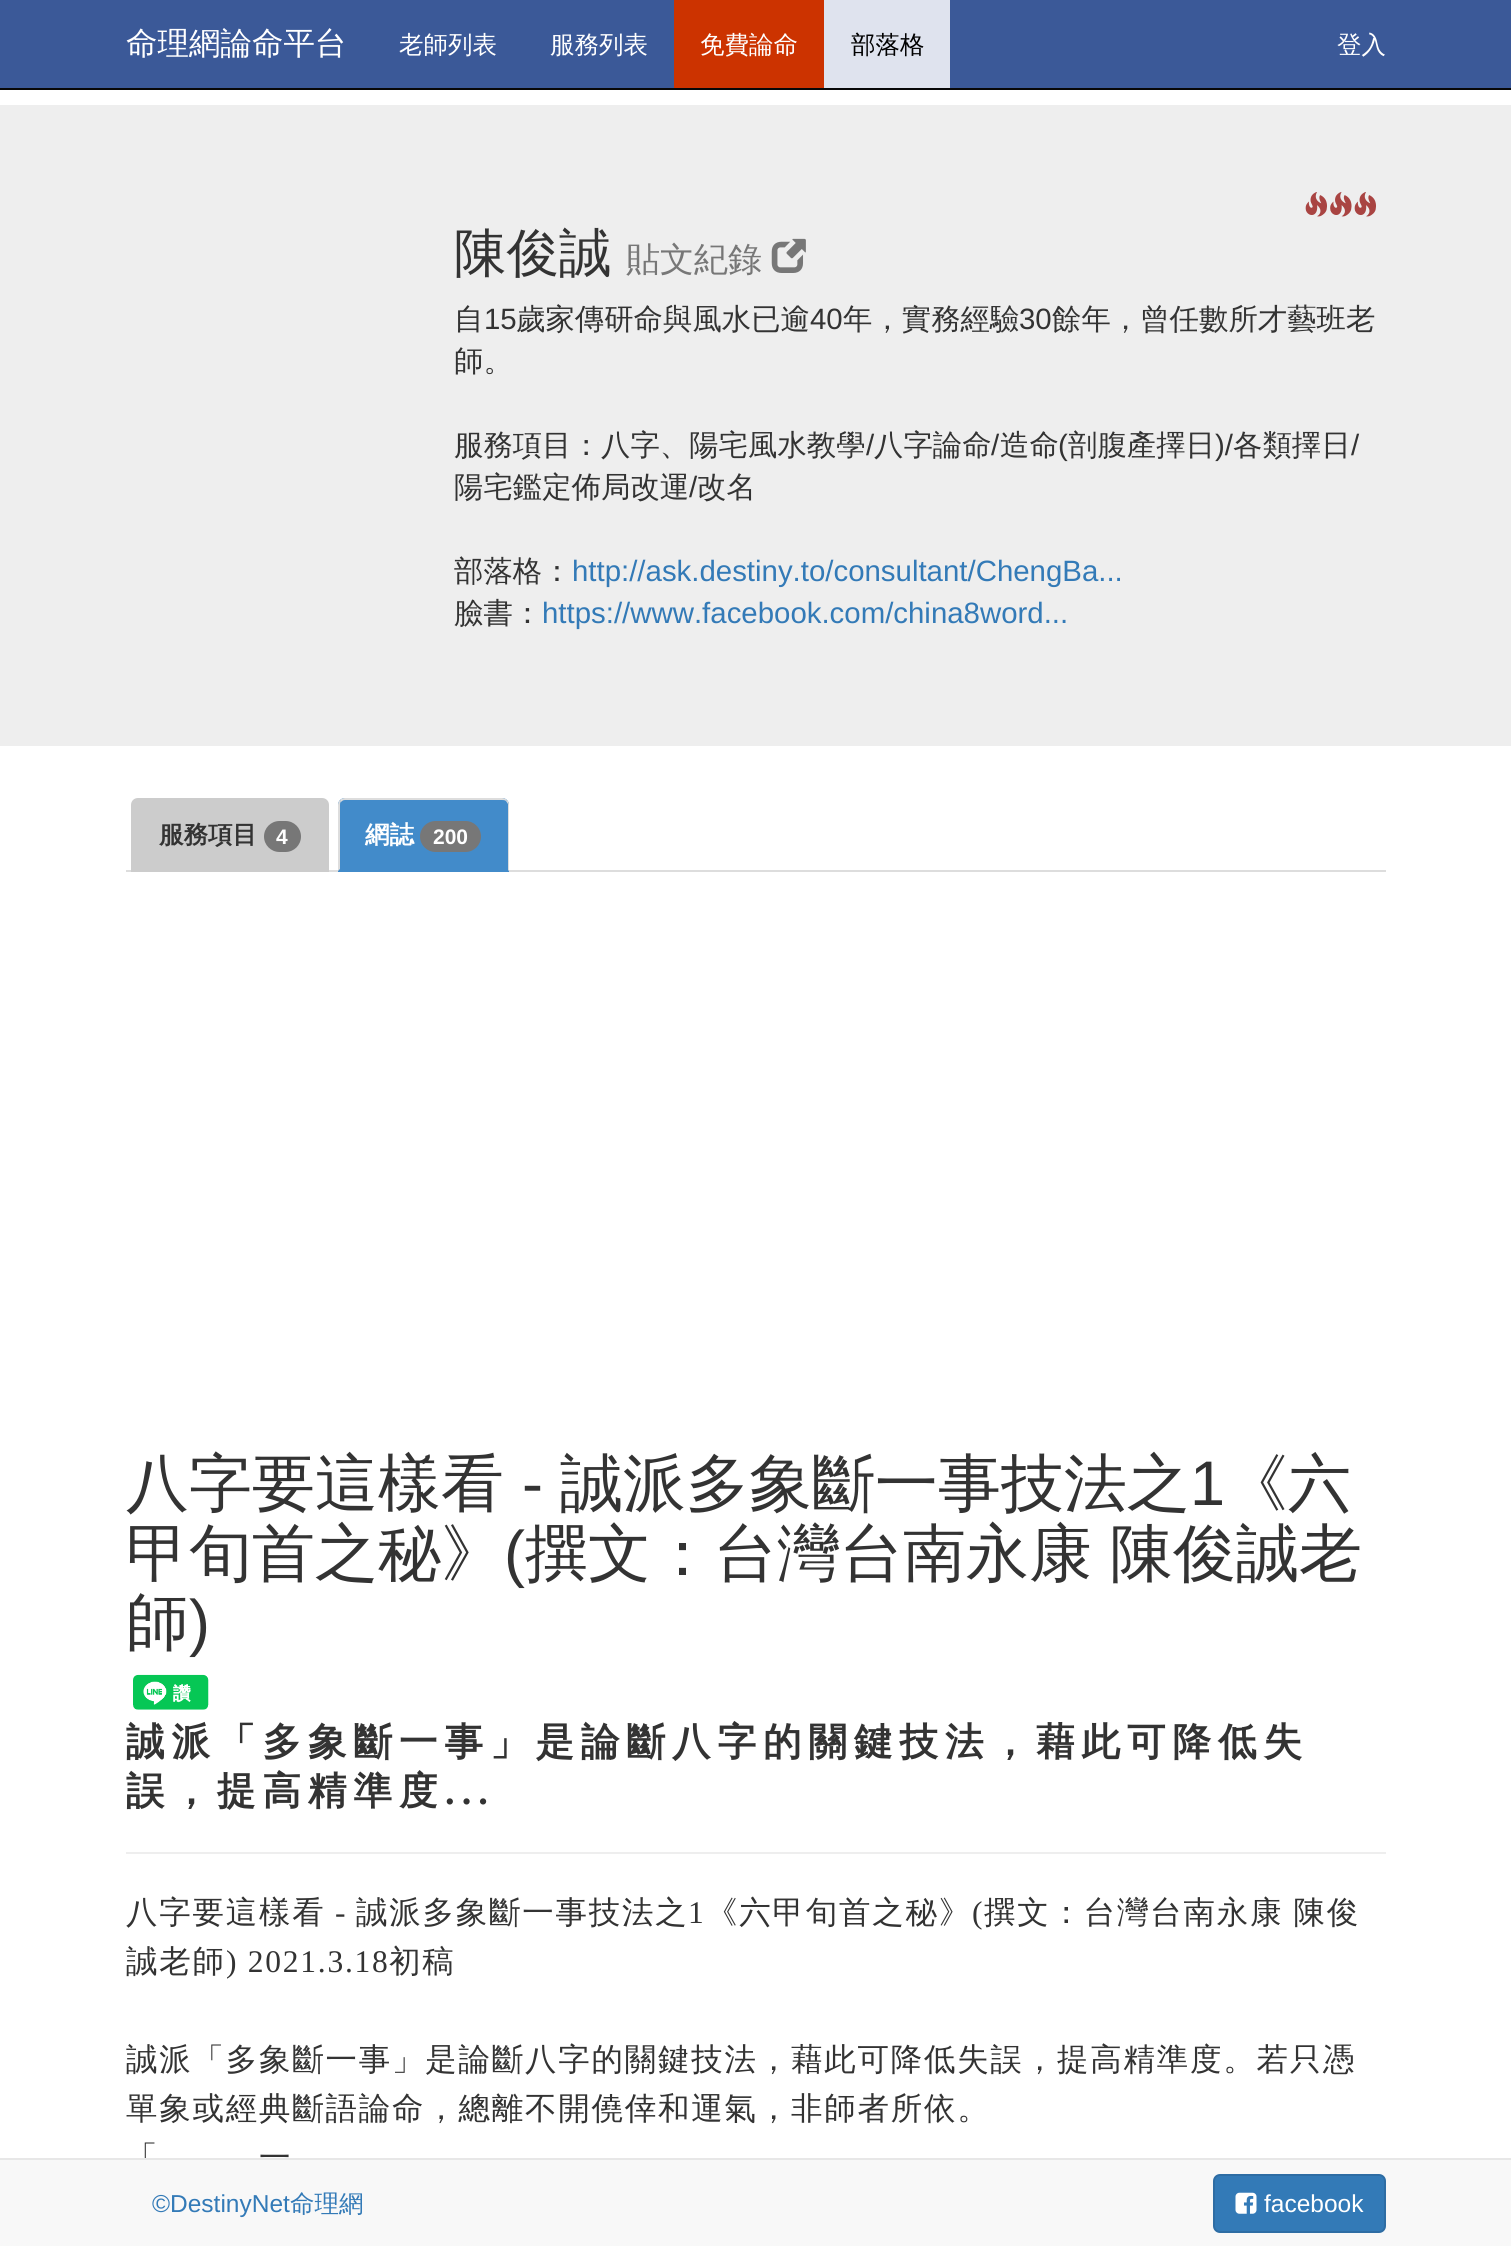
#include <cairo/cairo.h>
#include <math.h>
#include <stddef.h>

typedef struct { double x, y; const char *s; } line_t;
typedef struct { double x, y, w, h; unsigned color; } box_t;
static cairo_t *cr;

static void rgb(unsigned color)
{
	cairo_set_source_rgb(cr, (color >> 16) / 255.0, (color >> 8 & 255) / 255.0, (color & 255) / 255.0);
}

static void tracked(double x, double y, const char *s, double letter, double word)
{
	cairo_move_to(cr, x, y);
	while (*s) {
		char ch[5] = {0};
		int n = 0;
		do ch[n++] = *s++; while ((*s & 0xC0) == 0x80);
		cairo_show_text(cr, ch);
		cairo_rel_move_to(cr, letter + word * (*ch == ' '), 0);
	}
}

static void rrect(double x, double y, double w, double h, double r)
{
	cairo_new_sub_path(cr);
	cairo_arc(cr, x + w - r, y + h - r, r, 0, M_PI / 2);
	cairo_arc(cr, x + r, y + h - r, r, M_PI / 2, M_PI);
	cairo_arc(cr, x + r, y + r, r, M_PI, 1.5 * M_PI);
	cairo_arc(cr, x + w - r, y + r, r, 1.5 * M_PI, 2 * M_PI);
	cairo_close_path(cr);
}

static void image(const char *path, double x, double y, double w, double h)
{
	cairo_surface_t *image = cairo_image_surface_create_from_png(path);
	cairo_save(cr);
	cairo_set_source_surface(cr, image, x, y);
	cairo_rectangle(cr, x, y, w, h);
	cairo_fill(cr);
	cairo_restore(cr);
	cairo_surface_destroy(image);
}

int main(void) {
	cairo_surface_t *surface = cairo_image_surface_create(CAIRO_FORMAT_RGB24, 1511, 2246);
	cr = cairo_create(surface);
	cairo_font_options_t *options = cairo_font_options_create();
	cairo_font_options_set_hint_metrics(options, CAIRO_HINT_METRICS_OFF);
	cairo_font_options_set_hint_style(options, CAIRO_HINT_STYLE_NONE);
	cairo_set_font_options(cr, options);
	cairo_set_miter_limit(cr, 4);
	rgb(0xffffff);
	cairo_paint(cr);
	{
		static const box_t items[] = {
			{0, 0, 1511, 88, 0x3b5998},
			{0, 88, 1511, 2, 0x080808},
			{674, 0, 150, 88, 0xcc3300},
			{824, 0, 126, 88, 0xdfe3ee},
			{0, 105, 1511, 641, 0xeeeeee},
		};
		for (size_t i = 0; i < sizeof items / sizeof *items; i++) {
			rgb(items[i].color);
			cairo_rectangle(cr, items[i].x, items[i].y, items[i].w, items[i].h);
			cairo_fill(cr);
		}
	}
	image("img/1.png", 1305, 192, 22, 25);
	image("img/2.png", 1330, 191, 22, 26);
	image("img/1.png", 1354, 192, 22, 25);
	image("img/3.png", 771, 238, 35, 35);
	rgb(0xdddddd);
	cairo_rectangle(cr, 126, 870, 1260, 2);
	cairo_fill(cr);
	rgb(0xcccccc);
	cairo_new_path(cr);
	cairo_move_to(cr, 138, 798);
	cairo_line_to(cr, 322, 798);
	cairo_curve_to(cr, 326, 798, 329, 801, 329, 805);
	cairo_line_to(cr, 329, 872);
	cairo_line_to(cr, 131, 872);
	cairo_line_to(cr, 131, 805);
	cairo_curve_to(cr, 131, 801, 134, 798, 138, 798);
	cairo_close_path(cr);
	cairo_fill(cr);
	rgb(0x777777);
	rrect(264, 821, 37, 31, 15.5);
	cairo_fill(cr);
	rgb(0x428bca);
	cairo_new_path(cr);
	cairo_move_to(cr, 345, 798);
	cairo_line_to(cr, 502, 798);
	cairo_curve_to(cr, 506, 798, 509, 801, 509, 805);
	cairo_line_to(cr, 509, 872);
	cairo_line_to(cr, 338, 872);
	cairo_line_to(cr, 338, 805);
	cairo_curve_to(cr, 338, 801, 341, 798, 345, 798);
	cairo_close_path(cr);
	cairo_fill(cr);
	rgb(0xdddddd);
	cairo_new_path(cr);
	cairo_move_to(cr, 345, 798);
	cairo_curve_to(cr, 343, 798, 341, 799, 340, 800);
	cairo_line_to(cr, 341, 802);
	cairo_curve_to(cr, 342, 801, 343, 800, 345, 800);
	cairo_line_to(cr, 502, 800);
	cairo_curve_to(cr, 503, 800, 505, 800, 506, 801);
	cairo_line_to(cr, 507, 800);
	cairo_curve_to(cr, 506, 799, 504, 798, 502, 798);
	cairo_close_path(cr);
	cairo_fill(cr);
	cairo_new_path(cr);
	cairo_move_to(cr, 507, 800);
	cairo_curve_to(cr, 508, 801, 509, 803, 509, 805);
	cairo_line_to(cr, 509, 871);
	cairo_line_to(cr, 508, 870);
	cairo_line_to(cr, 508, 804);
	cairo_line_to(cr, 506, 801);
	cairo_close_path(cr);
	cairo_fill(cr);
	cairo_new_path(cr);
	cairo_move_to(cr, 340, 800);
	cairo_curve_to(cr, 339, 801, 338, 803, 338, 805);
	cairo_line_to(cr, 338, 871);
	cairo_line_to(cr, 340, 869);
	cairo_line_to(cr, 340, 805);
	cairo_curve_to(cr, 340, 804, 340, 802, 341, 802);
	cairo_close_path(cr);
	cairo_fill(cr);
	rgb(0x777777);
	rrect(420, 821, 61, 31, 15.5);
	cairo_fill(cr);
	image("img/4.png", 133, 1674, 76, 36);
	rgb(0xeeeeee);
	cairo_rectangle(cr, 126, 1852, 1260, 2);
	cairo_fill(cr);
	rgb(0xf8f8f8);
	cairo_rectangle(cr, 0, 2160, 1511, 86);
	cairo_fill(cr);
	rgb(0x337ab7);
	rrect(1214, 2175, 171, 57, 6);
	cairo_fill_preserve(cr);
	rgb(0x2e6da4);
	cairo_stroke(cr);
	image("img/5.png", 1235, 2192, 22, 22);
	cairo_select_font_face(cr, "WenQuanYi Zen Hei Medium", CAIRO_FONT_SLANT_NORMAL, CAIRO_FONT_WEIGHT_NORMAL);
	cairo_set_font_size(cr, 31.5);
	rgb(0xffffff);
	cairo_move_to(cr, 126, 54);
	cairo_show_text(cr, "命理網論命平台");
	cairo_set_font_size(cr, 24.5);
	{
		static const line_t items[] = {
			{399, 53, "老師列表"},
			{550, 53, "服務列表"},
			{700, 53, "免費論命"},
		};
		for (size_t i = 0; i < sizeof items / sizeof *items; i++) {
			cairo_move_to(cr, items[i].x, items[i].y);
			cairo_show_text(cr, items[i].s);
		}
	}
	rgb(0x000000);
	cairo_move_to(cr, 851, 53);
	cairo_show_text(cr, "部落格");
	rgb(0xffffff);
	cairo_move_to(cr, 1337, 53);
	cairo_show_text(cr, "登入");
	cairo_set_font_size(cr, 52.5);
	rgb(0x333333);
	cairo_move_to(cr, 454, 271);
	cairo_show_text(cr, "陳俊誠");
	cairo_set_font_size(cr, 34);
	rgb(0x777777);
	cairo_move_to(cr, 626, 271);
	cairo_show_text(cr, "貼文紀錄");
	cairo_set_font_size(cr, 29.4);
	rgb(0x333333);
	cairo_move_to(cr, 454, 329);
	cairo_show_text(cr, "自");
	cairo_select_font_face(cr, "Liberation Sans", CAIRO_FONT_SLANT_NORMAL, CAIRO_FONT_WEIGHT_NORMAL);
	cairo_move_to(cr, 484, 329);
	cairo_show_text(cr, "15");
	cairo_select_font_face(cr, "WenQuanYi Zen Hei Medium", CAIRO_FONT_SLANT_NORMAL, CAIRO_FONT_WEIGHT_NORMAL);
	cairo_move_to(cr, 516, 329);
	cairo_show_text(cr, "歲家傳研命與風水已逾");
	cairo_select_font_face(cr, "Liberation Sans", CAIRO_FONT_SLANT_NORMAL, CAIRO_FONT_WEIGHT_NORMAL);
	cairo_move_to(cr, 810, 329);
	cairo_show_text(cr, "40");
	cairo_select_font_face(cr, "WenQuanYi Zen Hei Medium", CAIRO_FONT_SLANT_NORMAL, CAIRO_FONT_WEIGHT_NORMAL);
	cairo_move_to(cr, 843, 329);
	cairo_show_text(cr, "年，實務經驗");
	cairo_select_font_face(cr, "Liberation Sans", CAIRO_FONT_SLANT_NORMAL, CAIRO_FONT_WEIGHT_NORMAL);
	cairo_move_to(cr, 1019, 329);
	cairo_show_text(cr, "30");
	cairo_select_font_face(cr, "WenQuanYi Zen Hei Medium", CAIRO_FONT_SLANT_NORMAL, CAIRO_FONT_WEIGHT_NORMAL);
	{
		static const line_t items[] = {
			{1052, 329, "餘年，曾任數所才藝班老"},
			{454, 371, "師。"},
			{454, 455, "服務項目：八字、陽宅風水教學"},
		};
		for (size_t i = 0; i < sizeof items / sizeof *items; i++) {
			cairo_move_to(cr, items[i].x, items[i].y);
			cairo_show_text(cr, items[i].s);
		}
	}
	cairo_select_font_face(cr, "Liberation Sans", CAIRO_FONT_SLANT_NORMAL, CAIRO_FONT_WEIGHT_NORMAL);
	cairo_move_to(cr, 866, 455);
	cairo_show_text(cr, "/");
	cairo_select_font_face(cr, "WenQuanYi Zen Hei Medium", CAIRO_FONT_SLANT_NORMAL, CAIRO_FONT_WEIGHT_NORMAL);
	cairo_move_to(cr, 874, 455);
	cairo_show_text(cr, "八字論命");
	cairo_select_font_face(cr, "Liberation Sans", CAIRO_FONT_SLANT_NORMAL, CAIRO_FONT_WEIGHT_NORMAL);
	cairo_move_to(cr, 991, 455);
	cairo_show_text(cr, "/");
	cairo_select_font_face(cr, "WenQuanYi Zen Hei Medium", CAIRO_FONT_SLANT_NORMAL, CAIRO_FONT_WEIGHT_NORMAL);
	cairo_move_to(cr, 1000, 455);
	cairo_show_text(cr, "造命");
	cairo_select_font_face(cr, "Liberation Sans", CAIRO_FONT_SLANT_NORMAL, CAIRO_FONT_WEIGHT_NORMAL);
	cairo_move_to(cr, 1058, 455);
	cairo_show_text(cr, "(");
	cairo_select_font_face(cr, "WenQuanYi Zen Hei Medium", CAIRO_FONT_SLANT_NORMAL, CAIRO_FONT_WEIGHT_NORMAL);
	cairo_move_to(cr, 1068, 455);
	cairo_show_text(cr, "剖腹產擇日");
	cairo_select_font_face(cr, "Liberation Sans", CAIRO_FONT_SLANT_NORMAL, CAIRO_FONT_WEIGHT_NORMAL);
	cairo_move_to(cr, 1215, 455);
	cairo_show_text(cr, ")/");
	cairo_select_font_face(cr, "WenQuanYi Zen Hei Medium", CAIRO_FONT_SLANT_NORMAL, CAIRO_FONT_WEIGHT_NORMAL);
	cairo_move_to(cr, 1233, 455);
	cairo_show_text(cr, "各類擇日");
	cairo_select_font_face(cr, "Liberation Sans", CAIRO_FONT_SLANT_NORMAL, CAIRO_FONT_WEIGHT_NORMAL);
	cairo_move_to(cr, 1351, 455);
	cairo_show_text(cr, "/");
	cairo_select_font_face(cr, "WenQuanYi Zen Hei Medium", CAIRO_FONT_SLANT_NORMAL, CAIRO_FONT_WEIGHT_NORMAL);
	cairo_move_to(cr, 454, 497);
	cairo_show_text(cr, "陽宅鑑定佈局改運");
	cairo_select_font_face(cr, "Liberation Sans", CAIRO_FONT_SLANT_NORMAL, CAIRO_FONT_WEIGHT_NORMAL);
	cairo_move_to(cr, 689, 497);
	cairo_show_text(cr, "/");
	cairo_select_font_face(cr, "WenQuanYi Zen Hei Medium", CAIRO_FONT_SLANT_NORMAL, CAIRO_FONT_WEIGHT_NORMAL);
	cairo_move_to(cr, 697, 497);
	cairo_show_text(cr, "改名");
	cairo_move_to(cr, 454, 581);
	cairo_show_text(cr, "部落格：");
	cairo_select_font_face(cr, "Liberation Sans", CAIRO_FONT_SLANT_NORMAL, CAIRO_FONT_WEIGHT_NORMAL);
	rgb(0x337ab7);
	cairo_move_to(cr, 572, 581);
	cairo_show_text(cr, "http://ask.destiny.to/consultant/ChengBa...");
	cairo_select_font_face(cr, "WenQuanYi Zen Hei Medium", CAIRO_FONT_SLANT_NORMAL, CAIRO_FONT_WEIGHT_NORMAL);
	rgb(0x333333);
	cairo_move_to(cr, 454, 623);
	cairo_show_text(cr, "臉書：");
	cairo_select_font_face(cr, "Liberation Sans", CAIRO_FONT_SLANT_NORMAL, CAIRO_FONT_WEIGHT_NORMAL);
	rgb(0x337ab7);
	cairo_move_to(cr, 542, 623);
	cairo_show_text(cr, "https://www.facebook.com/china8word...");
	cairo_select_font_face(cr, "WenQuanYi Zen Hei", CAIRO_FONT_SLANT_NORMAL, CAIRO_FONT_WEIGHT_BOLD);
	cairo_set_font_size(cr, 24.5);
	rgb(0x333333);
	cairo_move_to(cr, 159, 843);
	cairo_show_text(cr, "服務項目");
	cairo_select_font_face(cr, "Liberation Sans", CAIRO_FONT_SLANT_NORMAL, CAIRO_FONT_WEIGHT_BOLD);
	cairo_set_font_size(cr, 21);
	rgb(0xffffff);
	cairo_move_to(cr, 276, 844);
	cairo_show_text(cr, "4");
	cairo_select_font_face(cr, "WenQuanYi Zen Hei", CAIRO_FONT_SLANT_NORMAL, CAIRO_FONT_WEIGHT_BOLD);
	cairo_set_font_size(cr, 24.5);
	cairo_move_to(cr, 365, 843);
	cairo_show_text(cr, "網誌");
	cairo_select_font_face(cr, "Liberation Sans", CAIRO_FONT_SLANT_NORMAL, CAIRO_FONT_WEIGHT_BOLD);
	cairo_set_font_size(cr, 21);
	cairo_move_to(cr, 433, 844);
	cairo_show_text(cr, "200");
	cairo_select_font_face(cr, "WenQuanYi Zen Hei Medium", CAIRO_FONT_SLANT_NORMAL, CAIRO_FONT_WEIGHT_NORMAL);
	cairo_set_font_size(cr, 63);
	rgb(0x333333);
	cairo_move_to(cr, 126, 1505);
	cairo_show_text(cr, "八字要這樣看");
	cairo_select_font_face(cr, "Liberation Sans", CAIRO_FONT_SLANT_NORMAL, CAIRO_FONT_WEIGHT_NORMAL);
	cairo_move_to(cr, 522, 1505);
	cairo_show_text(cr, "-");
	cairo_select_font_face(cr, "WenQuanYi Zen Hei Medium", CAIRO_FONT_SLANT_NORMAL, CAIRO_FONT_WEIGHT_NORMAL);
	cairo_move_to(cr, 560, 1505);
	cairo_show_text(cr, "誠派多象斷一事技法之");
	cairo_select_font_face(cr, "Liberation Sans", CAIRO_FONT_SLANT_NORMAL, CAIRO_FONT_WEIGHT_NORMAL);
	cairo_move_to(cr, 1190, 1505);
	cairo_show_text(cr, "1");
	cairo_select_font_face(cr, "WenQuanYi Zen Hei Medium", CAIRO_FONT_SLANT_NORMAL, CAIRO_FONT_WEIGHT_NORMAL);
	cairo_move_to(cr, 1225, 1505);
	cairo_show_text(cr, "《六");
	cairo_move_to(cr, 126, 1575);
	cairo_show_text(cr, "甲旬首之秘》");
	cairo_select_font_face(cr, "Liberation Sans", CAIRO_FONT_SLANT_NORMAL, CAIRO_FONT_WEIGHT_NORMAL);
	cairo_move_to(cr, 504, 1575);
	cairo_show_text(cr, "(");
	cairo_select_font_face(cr, "WenQuanYi Zen Hei Medium", CAIRO_FONT_SLANT_NORMAL, CAIRO_FONT_WEIGHT_NORMAL);
	tracked(525, 1575, "撰文：台灣台南永康 陳俊誠老", 0, -1);
	cairo_move_to(cr, 126, 1644);
	cairo_show_text(cr, "師");
	cairo_select_font_face(cr, "Liberation Sans", CAIRO_FONT_SLANT_NORMAL, CAIRO_FONT_WEIGHT_NORMAL);
	cairo_move_to(cr, 189, 1644);
	cairo_show_text(cr, ")");
	cairo_select_font_face(cr, "WenQuanYi Zen Hei", CAIRO_FONT_SLANT_NORMAL, CAIRO_FONT_WEIGHT_BOLD);
	cairo_set_font_size(cr, 38.5);
	tracked(126, 1755, "誠派「多象斷一事」是論斷八字的關鍵技法，藉此可降低失", 7, 0);
	tracked(126, 1804, "誤，提高精準度", 7, 0);
	cairo_select_font_face(cr, "Liberation Serif", CAIRO_FONT_SLANT_NORMAL, CAIRO_FONT_WEIGHT_BOLD);
	tracked(445, 1804, "...", 7, 0);
	cairo_select_font_face(cr, "WenQuanYi Zen Hei Medium", CAIRO_FONT_SLANT_NORMAL, CAIRO_FONT_WEIGHT_NORMAL);
	cairo_set_font_size(cr, 31.5);
	tracked(126, 1923, "八字要這樣看", 1.75, 0);
	cairo_select_font_face(cr, "Liberation Serif", CAIRO_FONT_SLANT_NORMAL, CAIRO_FONT_WEIGHT_NORMAL);
	tracked(335, 1923, "-", 1.75, 0);
	cairo_select_font_face(cr, "WenQuanYi Zen Hei Medium", CAIRO_FONT_SLANT_NORMAL, CAIRO_FONT_WEIGHT_NORMAL);
	tracked(356, 1923, "誠派多象斷一事技法之", 1.75, 0);
	cairo_select_font_face(cr, "Liberation Serif", CAIRO_FONT_SLANT_NORMAL, CAIRO_FONT_WEIGHT_NORMAL);
	tracked(688, 1923, "1", 1.75, 0);
	cairo_select_font_face(cr, "WenQuanYi Zen Hei Medium", CAIRO_FONT_SLANT_NORMAL, CAIRO_FONT_WEIGHT_NORMAL);
	tracked(706, 1923, "《六甲旬首之秘》", 1.75, 0);
	cairo_select_font_face(cr, "Liberation Serif", CAIRO_FONT_SLANT_NORMAL, CAIRO_FONT_WEIGHT_NORMAL);
	tracked(972, 1923, "(", 1.75, 0);
	cairo_select_font_face(cr, "WenQuanYi Zen Hei Medium", CAIRO_FONT_SLANT_NORMAL, CAIRO_FONT_WEIGHT_NORMAL);
	tracked(984, 1923, "撰文：台灣台南永康 陳俊", 1.75, -1);
	tracked(126, 1972, "誠老師", 1.75, 0);
	cairo_select_font_face(cr, "Liberation Serif", CAIRO_FONT_SLANT_NORMAL, CAIRO_FONT_WEIGHT_NORMAL);
	tracked(226, 1972, ") 2021.3.18", 1.75, 0);
	cairo_select_font_face(cr, "WenQuanYi Zen Hei Medium", CAIRO_FONT_SLANT_NORMAL, CAIRO_FONT_WEIGHT_NORMAL);
	{
		static const line_t items[] = {
			{389, 1972, "初稿"},
			{126, 2070, "誠派「多象斷一事」是論斷八字的關鍵技法，藉此可降低失誤，提高精準度。若只憑"},
			{126, 2119, "單象或經典斷語論命，總離不開僥倖和運氣，非師者所依。"},
			{126, 2168, "「"},
			{259, 2168, "一"},
		};
		for (size_t i = 0; i < sizeof items / sizeof *items; i++) {
			tracked(items[i].x, items[i].y, items[i].s, 1.75, 0);
		}
	}
	rgb(0xe7e7e7);
	cairo_rectangle(cr, 0, 2158, 1511, 2);
	cairo_fill(cr);
	cairo_select_font_face(cr, "Liberation Sans", CAIRO_FONT_SLANT_NORMAL, CAIRO_FONT_WEIGHT_NORMAL);
	cairo_set_font_size(cr, 24.5);
	rgb(0x337ab7);
	cairo_move_to(cr, 152, 2212);
	cairo_show_text(cr, "©DestinyNet");
	cairo_select_font_face(cr, "WenQuanYi Zen Hei Medium", CAIRO_FONT_SLANT_NORMAL, CAIRO_FONT_WEIGHT_NORMAL);
	cairo_move_to(cr, 290, 2212);
	cairo_show_text(cr, "命理網");
	cairo_select_font_face(cr, "Liberation Sans", CAIRO_FONT_SLANT_NORMAL, CAIRO_FONT_WEIGHT_NORMAL);
	rgb(0xffffff);
	cairo_move_to(cr, 1264, 2212);
	cairo_show_text(cr, "facebook");
	cairo_surface_write_to_png(surface, "page.png");
	cairo_font_options_destroy(options);
	cairo_destroy(cr);
	cairo_surface_destroy(surface);
	return 0;
}
